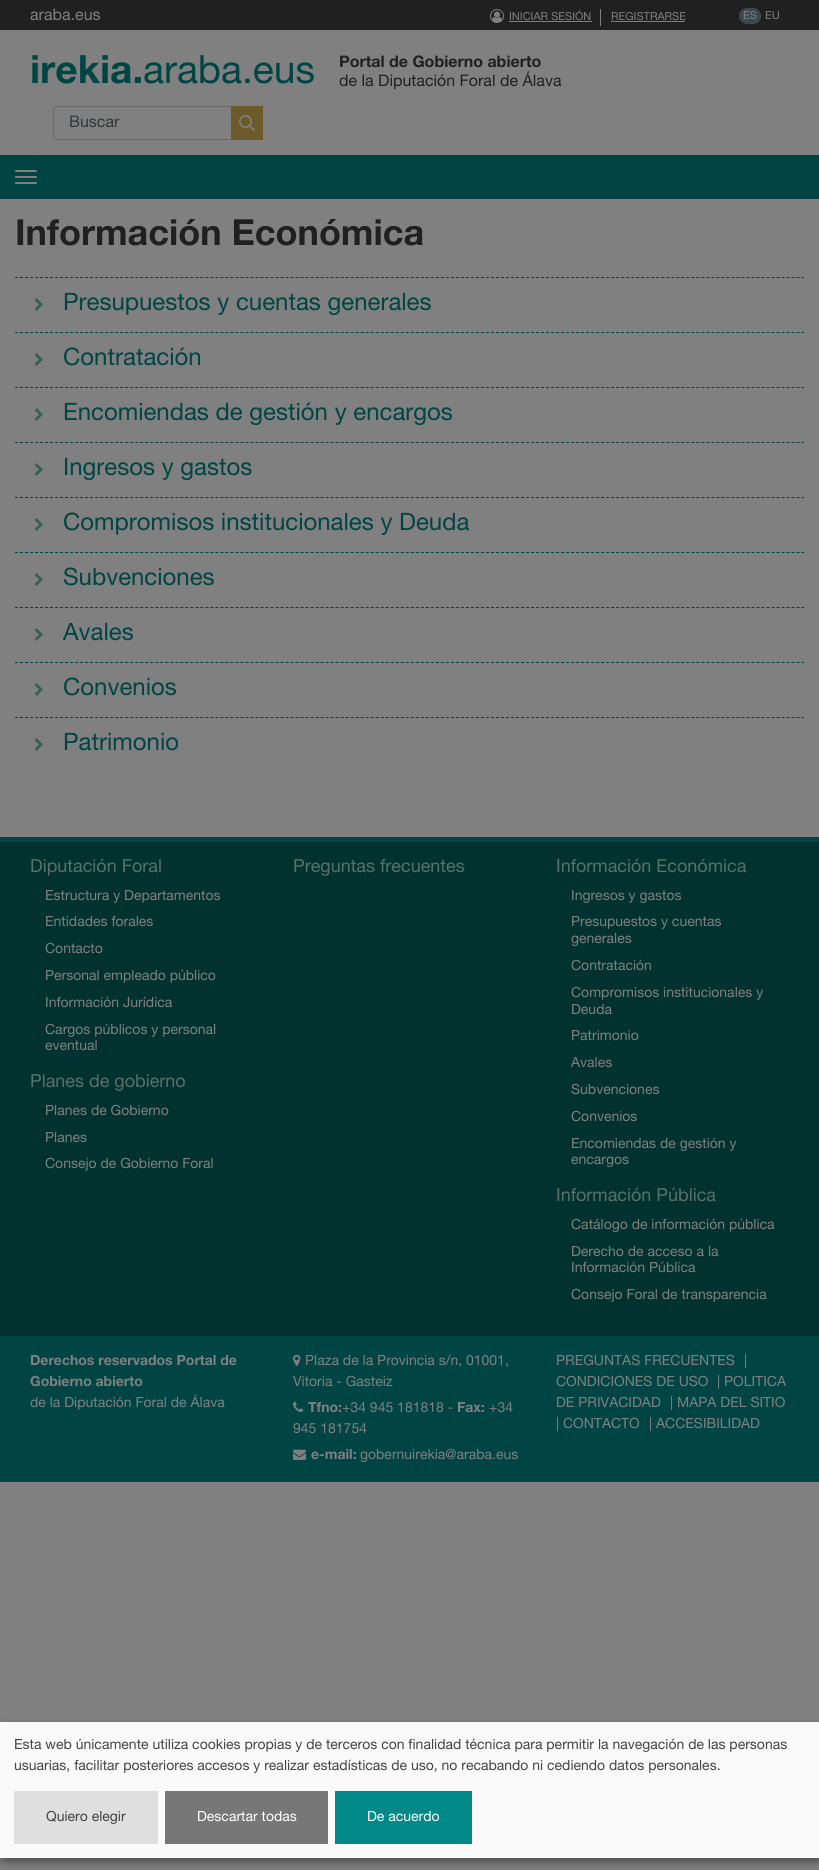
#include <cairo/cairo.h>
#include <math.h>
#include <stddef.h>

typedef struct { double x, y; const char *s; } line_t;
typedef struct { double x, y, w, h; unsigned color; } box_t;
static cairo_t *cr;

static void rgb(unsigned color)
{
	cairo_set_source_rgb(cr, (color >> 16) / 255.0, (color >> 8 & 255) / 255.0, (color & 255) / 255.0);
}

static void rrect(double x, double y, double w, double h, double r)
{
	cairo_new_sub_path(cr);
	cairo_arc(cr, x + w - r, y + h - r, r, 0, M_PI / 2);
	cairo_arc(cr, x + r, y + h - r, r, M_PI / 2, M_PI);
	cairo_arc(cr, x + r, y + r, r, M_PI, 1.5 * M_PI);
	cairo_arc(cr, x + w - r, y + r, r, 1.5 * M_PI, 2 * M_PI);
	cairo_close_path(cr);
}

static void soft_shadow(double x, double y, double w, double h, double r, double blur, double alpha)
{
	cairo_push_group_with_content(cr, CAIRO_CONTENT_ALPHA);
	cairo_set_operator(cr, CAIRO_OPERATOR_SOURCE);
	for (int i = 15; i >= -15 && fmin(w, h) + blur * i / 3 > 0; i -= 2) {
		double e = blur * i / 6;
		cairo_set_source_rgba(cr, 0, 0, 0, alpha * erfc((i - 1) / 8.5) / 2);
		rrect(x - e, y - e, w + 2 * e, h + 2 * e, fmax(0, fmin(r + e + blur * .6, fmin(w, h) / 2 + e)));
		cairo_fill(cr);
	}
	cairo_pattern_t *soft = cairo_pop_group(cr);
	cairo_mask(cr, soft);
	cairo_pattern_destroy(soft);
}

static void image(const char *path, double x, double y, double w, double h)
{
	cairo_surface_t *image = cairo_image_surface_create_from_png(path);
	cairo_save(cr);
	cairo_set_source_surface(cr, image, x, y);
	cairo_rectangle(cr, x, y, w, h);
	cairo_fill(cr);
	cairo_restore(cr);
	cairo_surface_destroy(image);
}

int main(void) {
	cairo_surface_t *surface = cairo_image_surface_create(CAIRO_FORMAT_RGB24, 819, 1870);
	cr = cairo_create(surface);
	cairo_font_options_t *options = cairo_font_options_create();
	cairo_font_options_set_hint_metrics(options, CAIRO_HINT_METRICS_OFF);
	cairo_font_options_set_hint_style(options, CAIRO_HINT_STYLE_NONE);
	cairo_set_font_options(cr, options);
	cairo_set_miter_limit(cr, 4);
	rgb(0x808080);
	cairo_paint(cr);
	rgb(0x212021);
	cairo_rectangle(cr, 0, 0, 819, 30);
	cairo_fill(cr);
	image("img/1.png", 490, 9, 14, 14);
	{
		static const box_t items[] = {
			{600, 9, 1, 17, 0x808080},
			{509, 21, 83, 1, 0x808080},
			{611, 21, 74, 1, 0x808080},
		};
		for (size_t i = 0; i < sizeof items / sizeof *items; i++) {
			rgb(items[i].color);
			cairo_rectangle(cr, items[i].x, items[i].y, items[i].w, items[i].h);
			cairo_fill(cr);
		}
	}
	rgb(0x3d484e);
	rrect(739, 8, 22, 16, 8);
	cairo_fill(cr);
	rrect(53.5, 106.5, 209, 33, 3.5);
	rgb(0x696969);
	cairo_set_line_width(cr, 1);
	cairo_stroke(cr);
	rgb(0x6c5a2a);
	cairo_rectangle(cr, 231, 106, 32, 34);
	cairo_fill(cr);
	image("img/2.png", 239, 115, 16, 16);
	rgb(0x004544);
	cairo_rectangle(cr, 0, 155, 819, 44);
	cairo_fill(cr);
	rgb(0x808080);
	rrect(15, 170, 22, 2, 1);
	cairo_fill(cr);
	rrect(15, 176, 22, 2, 1);
	cairo_fill(cr);
	rrect(15, 182, 22, 2, 1);
	cairo_fill(cr);
	cairo_new_path(cr);
	cairo_move_to(cr, 15, 277.5);
	cairo_line_to(cr, 804, 277.5);
	rgb(0x004544);
	cairo_set_dash(cr, (double[]){3, 2.01}, 2, 0);
	cairo_stroke(cr);
	image("img/3.png", 34, 298, 9, 13);
	cairo_new_path(cr);
	cairo_move_to(cr, 15, 332.5);
	cairo_line_to(cr, 804, 332.5);
	cairo_stroke(cr);
	image("img/3.png", 34, 353, 9, 13);
	cairo_new_path(cr);
	cairo_move_to(cr, 15, 387.5);
	cairo_line_to(cr, 804, 387.5);
	cairo_stroke(cr);
	image("img/3.png", 34, 408, 9, 13);
	cairo_new_path(cr);
	cairo_move_to(cr, 15, 442.5);
	cairo_line_to(cr, 804, 442.5);
	cairo_stroke(cr);
	image("img/3.png", 34, 463, 9, 13);
	cairo_new_path(cr);
	cairo_move_to(cr, 15, 497.5);
	cairo_line_to(cr, 804, 497.5);
	cairo_stroke(cr);
	image("img/3.png", 34, 518, 9, 13);
	cairo_new_path(cr);
	cairo_move_to(cr, 15, 552.5);
	cairo_line_to(cr, 804, 552.5);
	cairo_stroke(cr);
	image("img/3.png", 34, 573, 9, 13);
	cairo_new_path(cr);
	cairo_move_to(cr, 15, 607.5);
	cairo_line_to(cr, 804, 607.5);
	cairo_stroke(cr);
	image("img/3.png", 34, 628, 9, 13);
	cairo_new_path(cr);
	cairo_move_to(cr, 15, 662.5);
	cairo_line_to(cr, 804, 662.5);
	cairo_stroke(cr);
	image("img/3.png", 34, 683, 9, 13);
	cairo_new_path(cr);
	cairo_move_to(cr, 15, 717.5);
	cairo_line_to(cr, 804, 717.5);
	cairo_stroke(cr);
	image("img/3.png", 34, 738, 9, 13);
	{
		static const box_t items[] = {
			{0, 842, 819, 494, 0x013230},
			{0, 837, 819, 5, 0x004444},
			{0, 1336, 819, 146, 0x004544},
		};
		for (size_t i = 0; i < sizeof items / sizeof *items; i++) {
			rgb(items[i].color);
			cairo_rectangle(cr, items[i].x, items[i].y, items[i].w, items[i].h);
			cairo_fill(cr);
		}
	}
	image("img/4.png", 293, 1354, 8, 12);
	image("img/5.png", 293, 1401, 11, 11);
	image("img/6.png", 293, 1449, 13, 11);
	rgb(0x000000);
	soft_shadow(5, 1727, 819, 136, 0, 5, 0.19);
	soft_shadow(0, 1726, 819, 136, 0, 3, 0.2);
	{
		static const box_t items[] = {
			{0, 1722, 819, 136, 0xfafafa},
			{14, 1791, 144, 53, 0xdfdfdf},
			{165, 1791, 163, 53, 0x777777},
			{335, 1791, 137, 53, 0x008988},
		};
		for (size_t i = 0; i < sizeof items / sizeof *items; i++) {
			rgb(items[i].color);
			cairo_rectangle(cr, items[i].x, items[i].y, items[i].w, items[i].h);
			cairo_fill(cr);
		}
	}
	cairo_select_font_face(cr, "Helvetica Neue", CAIRO_FONT_SLANT_NORMAL, CAIRO_FONT_WEIGHT_NORMAL);
	cairo_set_font_size(cr, 16);
	rgb(0x808080);
	cairo_move_to(cr, 30, 20);
	cairo_show_text(cr, "araba.eus");
	cairo_set_font_size(cr, 11);
	{
		static const line_t items[] = {
			{509, 20, "INICIAR SESIÓN"},
			{611, 20, "REGISTRARSE"},
			{743, 19, "ES"},
			{765, 19, "EU"},
		};
		for (size_t i = 0; i < sizeof items / sizeof *items; i++) {
			cairo_move_to(cr, items[i].x, items[i].y);
			cairo_show_text(cr, items[i].s);
		}
	}
	cairo_select_font_face(cr, "Helvetica Neue", CAIRO_FONT_SLANT_NORMAL, CAIRO_FONT_WEIGHT_BOLD);
	cairo_set_font_size(cr, 39);
	rgb(0x004544);
	cairo_move_to(cr, 30, 83);
	cairo_show_text(cr, "irekia.");
	cairo_select_font_face(cr, "Helvetica Neue", CAIRO_FONT_SLANT_NORMAL, CAIRO_FONT_WEIGHT_NORMAL);
	cairo_move_to(cr, 143, 83);
	cairo_show_text(cr, "araba.eus");
	cairo_select_font_face(cr, "Helvetica Neue", CAIRO_FONT_SLANT_NORMAL, CAIRO_FONT_WEIGHT_BOLD);
	cairo_set_font_size(cr, 16);
	rgb(0x212021);
	cairo_move_to(cr, 339, 67);
	cairo_show_text(cr, "Portal de Gobierno abierto");
	cairo_select_font_face(cr, "Helvetica Neue", CAIRO_FONT_SLANT_NORMAL, CAIRO_FONT_WEIGHT_NORMAL);
	cairo_move_to(cr, 339, 86);
	cairo_show_text(cr, "de la Diputación Foral de Álava");
	rgb(0x323639);
	cairo_move_to(cr, 69, 127);
	cairo_show_text(cr, "Buscar");
	cairo_select_font_face(cr, "Helvetica Neue", CAIRO_FONT_SLANT_NORMAL, CAIRO_FONT_WEIGHT_BOLD);
	cairo_set_font_size(cr, 36);
	rgb(0x212021);
	cairo_move_to(cr, 15, 245);
	cairo_show_text(cr, "Información Económica");
	cairo_select_font_face(cr, "Helvetica Neue", CAIRO_FONT_SLANT_NORMAL, CAIRO_FONT_WEIGHT_NORMAL);
	cairo_set_font_size(cr, 24);
	rgb(0x004544);
	{
		static const line_t items[] = {
			{63, 310, "Presupuestos y cuentas generales"},
			{63, 365, "Contratación"},
			{63, 420, "Encomiendas de gestión y encargos"},
			{63, 475, "Ingresos y gastos"},
			{63, 530, "Compromisos institucionales y Deuda"},
			{63, 585, "Subvenciones"},
			{63, 640, "Avales"},
			{63, 695, "Convenios"},
			{63, 750, "Patrimonio"},
		};
		for (size_t i = 0; i < sizeof items / sizeof *items; i++) {
			cairo_move_to(cr, items[i].x, items[i].y);
			cairo_show_text(cr, items[i].s);
		}
	}
	cairo_set_font_size(cr, 18);
	rgb(0x57706a);
	cairo_move_to(cr, 30, 872);
	cairo_show_text(cr, "Diputación Foral");
	cairo_set_font_size(cr, 14);
	rgb(0x808080);
	{
		static const line_t items[] = {
			{45, 900, "Estructura y Departamentos"},
			{45, 926, "Entidades forales"},
			{45, 953, "Contacto"},
			{45, 980, "Personal empleado público"},
			{45, 1007, "Información Jurídica"},
			{45, 1034, "Cargos públicos y personal"},
			{45, 1050, "eventual"},
		};
		for (size_t i = 0; i < sizeof items / sizeof *items; i++) {
			cairo_move_to(cr, items[i].x, items[i].y);
			cairo_show_text(cr, items[i].s);
		}
	}
	cairo_set_font_size(cr, 18);
	rgb(0x57706a);
	cairo_move_to(cr, 30, 1087);
	cairo_show_text(cr, "Planes de gobierno");
	cairo_set_font_size(cr, 14);
	rgb(0x808080);
	{
		static const line_t items[] = {
			{45, 1115, "Planes de Gobierno"},
			{45, 1142, "Planes"},
			{45, 1168, "Consejo de Gobierno Foral"},
		};
		for (size_t i = 0; i < sizeof items / sizeof *items; i++) {
			cairo_move_to(cr, items[i].x, items[i].y);
			cairo_show_text(cr, items[i].s);
		}
	}
	cairo_set_font_size(cr, 18);
	rgb(0x57706a);
	cairo_move_to(cr, 293, 872);
	cairo_show_text(cr, "Preguntas frecuentes");
	cairo_move_to(cr, 556, 872);
	cairo_show_text(cr, "Información Económica");
	cairo_set_font_size(cr, 14);
	rgb(0x808080);
	{
		static const line_t items[] = {
			{571, 900, "Ingresos y gastos"},
			{571, 926, "Presupuestos y cuentas"},
			{571, 943, "generales"},
			{571, 970, "Contratación"},
			{571, 997, "Compromisos institucionales y"},
			{571, 1014, "Deuda"},
			{571, 1040, "Patrimonio"},
			{571, 1067, "Avales"},
			{571, 1094, "Subvenciones"},
			{571, 1121, "Convenios"},
			{571, 1148, "Encomiendas de gestión y"},
			{571, 1164, "encargos"},
		};
		for (size_t i = 0; i < sizeof items / sizeof *items; i++) {
			cairo_move_to(cr, items[i].x, items[i].y);
			cairo_show_text(cr, items[i].s);
		}
	}
	cairo_set_font_size(cr, 18);
	rgb(0x57706a);
	cairo_move_to(cr, 556, 1201);
	cairo_show_text(cr, "Información Pública");
	cairo_set_font_size(cr, 14);
	rgb(0x808080);
	{
		static const line_t items[] = {
			{571, 1229, "Catálogo de información pública"},
			{571, 1256, "Derecho de acceso a la"},
			{571, 1272, "Información Pública"},
			{571, 1299, "Consejo Foral de transparencia"},
		};
		for (size_t i = 0; i < sizeof items / sizeof *items; i++) {
			cairo_move_to(cr, items[i].x, items[i].y);
			cairo_show_text(cr, items[i].s);
		}
	}
	cairo_select_font_face(cr, "Helvetica Neue", CAIRO_FONT_SLANT_NORMAL, CAIRO_FONT_WEIGHT_BOLD);
	cairo_move_to(cr, 30, 1365);
	cairo_show_text(cr, "Derechos reservados Portal de");
	cairo_move_to(cr, 30, 1386);
	cairo_show_text(cr, "Gobierno abierto");
	cairo_select_font_face(cr, "Helvetica Neue", CAIRO_FONT_SLANT_NORMAL, CAIRO_FONT_WEIGHT_NORMAL);
	{
		static const line_t items[] = {
			{30, 1407, "de la Diputación Foral de Álava"},
			{305, 1365, "Plaza de la Provincia s/n, 01001,"},
			{293, 1386, "Vitoria - Gasteiz"},
		};
		for (size_t i = 0; i < sizeof items / sizeof *items; i++) {
			cairo_move_to(cr, items[i].x, items[i].y);
			cairo_show_text(cr, items[i].s);
		}
	}
	cairo_select_font_face(cr, "Helvetica Neue", CAIRO_FONT_SLANT_NORMAL, CAIRO_FONT_WEIGHT_BOLD);
	cairo_move_to(cr, 308, 1412);
	cairo_show_text(cr, "Tfno:");
	cairo_select_font_face(cr, "Helvetica Neue", CAIRO_FONT_SLANT_NORMAL, CAIRO_FONT_WEIGHT_NORMAL);
	cairo_move_to(cr, 342, 1412);
	cairo_show_text(cr, "+34 945 181818 -");
	cairo_select_font_face(cr, "Helvetica Neue", CAIRO_FONT_SLANT_NORMAL, CAIRO_FONT_WEIGHT_BOLD);
	cairo_move_to(cr, 457, 1412);
	cairo_show_text(cr, "Fax:");
	cairo_select_font_face(cr, "Helvetica Neue", CAIRO_FONT_SLANT_NORMAL, CAIRO_FONT_WEIGHT_NORMAL);
	cairo_move_to(cr, 489, 1412);
	cairo_show_text(cr, "+34");
	cairo_move_to(cr, 293, 1433);
	cairo_show_text(cr, "945 181754");
	cairo_select_font_face(cr, "Helvetica Neue", CAIRO_FONT_SLANT_NORMAL, CAIRO_FONT_WEIGHT_BOLD);
	cairo_move_to(cr, 311, 1459);
	cairo_show_text(cr, "e-mail:");
	cairo_select_font_face(cr, "Helvetica Neue", CAIRO_FONT_SLANT_NORMAL, CAIRO_FONT_WEIGHT_NORMAL);
	{
		static const line_t items[] = {
			{360, 1459, "gobernuirekia@araba.eus"},
			{556, 1365, "PREGUNTAS FRECUENTES"},
			{744, 1365, "|"},
			{556, 1386, "CONDICIONES DE USO"},
			{717, 1386, "| POLITICA"},
			{556, 1407, "DE PRIVACIDAD"},
			{670, 1407, "| MAPA DEL SITIO"},
			{556, 1428, "| CONTACTO"},
			{649, 1428, "| ACCESIBILIDAD"},
		};
		for (size_t i = 0; i < sizeof items / sizeof *items; i++) {
			cairo_move_to(cr, items[i].x, items[i].y);
			cairo_show_text(cr, items[i].s);
		}
	}
	rgb(0x444444);
	{
		static const line_t items[] = {
			{14, 1749, "Esta web únicamente utiliza cookies propias y de terceros con finalidad técnica para permitir la navegación de las personas"},
			{14, 1770, "usuarias, facilitar posteriores accesos y realizar estadísticas de uso, no recabando ni cediendo datos personales."},
			{46, 1821, "Quiero elegir"},
		};
		for (size_t i = 0; i < sizeof items / sizeof *items; i++) {
			cairo_move_to(cr, items[i].x, items[i].y);
			cairo_show_text(cr, items[i].s);
		}
	}
	rgb(0xffffff);
	cairo_move_to(cr, 197, 1821);
	cairo_show_text(cr, "Descartar todas");
	cairo_move_to(cr, 367, 1821);
	cairo_show_text(cr, "De acuerdo");
	cairo_surface_write_to_png(surface, "page.png");
	cairo_font_options_destroy(options);
	cairo_destroy(cr);
	cairo_surface_destroy(surface);
	return 0;
}
